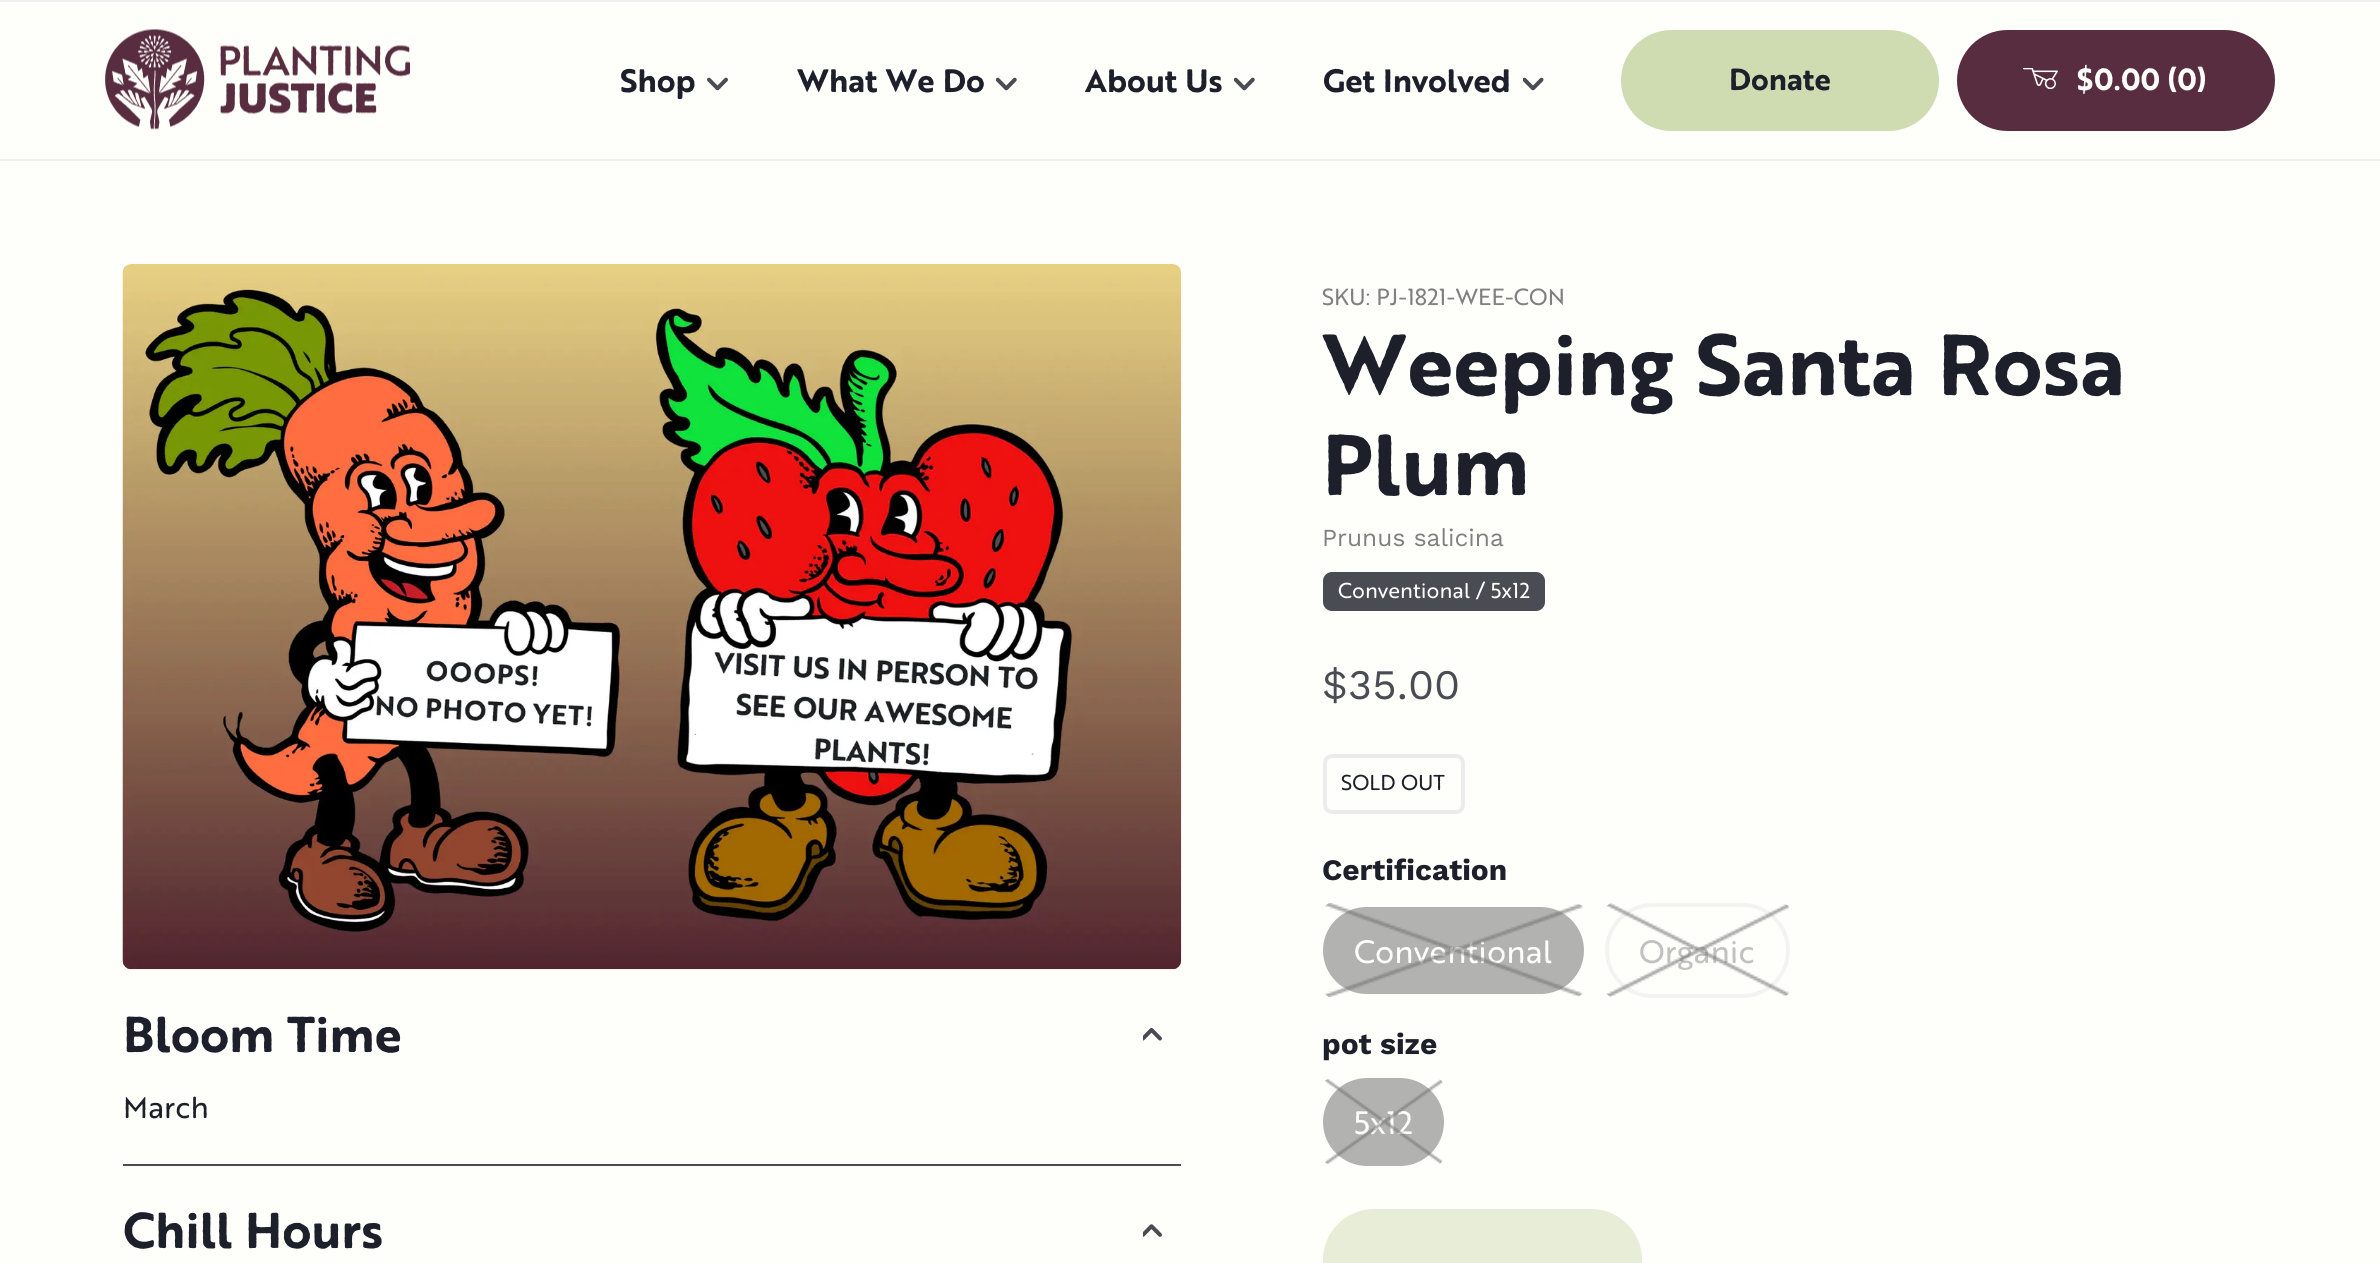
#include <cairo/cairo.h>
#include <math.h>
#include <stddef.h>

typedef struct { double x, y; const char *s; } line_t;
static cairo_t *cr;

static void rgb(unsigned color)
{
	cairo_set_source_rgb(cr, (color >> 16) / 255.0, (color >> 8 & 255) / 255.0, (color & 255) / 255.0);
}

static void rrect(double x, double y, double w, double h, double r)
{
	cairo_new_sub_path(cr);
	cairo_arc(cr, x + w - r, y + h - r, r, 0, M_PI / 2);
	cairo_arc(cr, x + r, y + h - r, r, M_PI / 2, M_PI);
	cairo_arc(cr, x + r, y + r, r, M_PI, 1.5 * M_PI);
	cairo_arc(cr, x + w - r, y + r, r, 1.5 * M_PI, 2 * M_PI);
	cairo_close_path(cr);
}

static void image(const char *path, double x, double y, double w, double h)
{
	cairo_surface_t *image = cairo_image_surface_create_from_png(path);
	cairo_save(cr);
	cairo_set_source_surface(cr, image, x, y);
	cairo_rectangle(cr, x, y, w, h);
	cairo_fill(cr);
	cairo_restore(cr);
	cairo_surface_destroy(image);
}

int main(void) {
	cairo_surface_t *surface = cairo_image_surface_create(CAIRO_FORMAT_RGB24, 2380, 1263);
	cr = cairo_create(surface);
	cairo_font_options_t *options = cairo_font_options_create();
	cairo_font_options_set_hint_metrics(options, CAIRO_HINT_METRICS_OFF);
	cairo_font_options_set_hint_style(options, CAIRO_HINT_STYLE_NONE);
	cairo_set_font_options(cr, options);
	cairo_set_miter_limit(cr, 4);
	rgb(0xfefefb);
	cairo_paint(cr);
	rgb(0xf0f0f0);
	cairo_rectangle(cr, 0, 0, 2380, 2);
	cairo_fill(cr);
	cairo_rectangle(cr, 0, 159, 2380, 2);
	cairo_fill(cr);
	image("img/1.png", 105, 29, 305, 101);
	image("img/2.png", 707, 77, 21, 14);
	image("img/3.png", 996, 77, 21, 14);
	image("img/3.png", 1234, 77, 21, 14);
	image("img/4.png", 1523, 77, 21, 14);
	rgb(0xcfdcb1);
	rrect(1621, 30, 318, 101, 50.5);
	cairo_fill(cr);
	rgb(0x582d40);
	rrect(1957, 30, 318, 101, 50.5);
	cairo_fill(cr);
	image("img/5.png", 2023, 68, 35, 21);
	image("img/6.png", 122, 264, 1060, 706);
	rgb(0x4a4c54);
	cairo_rectangle(cr, 123, 1164, 1058, 2);
	cairo_fill(cr);
	image("img/7.png", 1143, 1028, 19, 13);
	image("img/8.png", 1143, 1224, 19, 13);
	rrect(1323, 572, 222, 39, 9);
	cairo_fill(cr);
	rrect(1325, 756, 138, 56, 7);
	rgb(0xececec);
	cairo_set_line_width(cr, 4);
	cairo_stroke(cr);
	rgb(0xb2b2b1);
	rrect(1323, 907, 261, 87, 43.5);
	cairo_fill(cr);
	rrect(1607, 905, 181, 91, 45.5);
	rgb(0xf3f3f2);
	cairo_stroke(cr);
	rgb(0xb2b2b1);
	rrect(1323, 1078, 121, 88, 44);
	cairo_fill(cr);
	rgb(0xe7edd6);
	rrect(1323, 1209, 319, 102, 51);
	cairo_fill(cr);
	cairo_select_font_face(cr, "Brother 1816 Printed", CAIRO_FONT_SLANT_NORMAL, CAIRO_FONT_WEIGHT_BOLD);
	cairo_set_font_size(cr, 31.5);
	rgb(0x1d1f2a);
	{
		static const line_t items[] = {
			{620, 92, "Shop"},
			{797, 92, "What We Do"},
			{1085, 92, "About Us"},
			{1323, 92, "Get Involved"},
		};
		for (size_t i = 0; i < sizeof items / sizeof *items; i++) {
			cairo_move_to(cr, items[i].x, items[i].y);
			cairo_show_text(cr, items[i].s);
		}
	}
	cairo_set_font_size(cr, 29.75);
	cairo_move_to(cr, 1729, 90);
	cairo_show_text(cr, "Donate");
	rgb(0xfefefb);
	cairo_move_to(cr, 2076, 90);
	cairo_show_text(cr, "$0.00");
	cairo_move_to(cr, 2167, 90);
	cairo_show_text(cr, "(0)");
	cairo_set_font_size(cr, 49);
	rgb(0x1d1f2a);
	cairo_move_to(cr, 123, 1052);
	cairo_show_text(cr, "Bloom Time");
	cairo_select_font_face(cr, "Brother 1816 Printed", CAIRO_FONT_SLANT_NORMAL, CAIRO_FONT_WEIGHT_NORMAL);
	cairo_set_font_size(cr, 29.75);
	cairo_move_to(cr, 123, 1118);
	cairo_show_text(cr, "March");
	cairo_select_font_face(cr, "Brother 1816 Printed", CAIRO_FONT_SLANT_NORMAL, CAIRO_FONT_WEIGHT_BOLD);
	cairo_set_font_size(cr, 49);
	cairo_move_to(cr, 123, 1248);
	cairo_show_text(cr, "Chill Hours");
	cairo_select_font_face(cr, "Brother 1816 Printed", CAIRO_FONT_SLANT_NORMAL, CAIRO_FONT_WEIGHT_NORMAL);
	cairo_set_font_size(cr, 22.75);
	rgb(0x808080);
	cairo_move_to(cr, 1322, 305);
	cairo_show_text(cr, "SKU: PJ-1821-WEE-CON");
	cairo_select_font_face(cr, "Brother 1816 Printed", CAIRO_FONT_SLANT_NORMAL, CAIRO_FONT_WEIGHT_BOLD);
	cairo_set_font_size(cr, 84);
	rgb(0x1d1f2a);
	cairo_move_to(cr, 1322, 395);
	cairo_show_text(cr, "Weeping Santa Rosa");
	cairo_move_to(cr, 1322, 495);
	cairo_show_text(cr, "Plum");
	cairo_select_font_face(cr, "Work Sans", CAIRO_FONT_SLANT_NORMAL, CAIRO_FONT_WEIGHT_NORMAL);
	cairo_set_font_size(cr, 24.5);
	rgb(0x808080);
	cairo_move_to(cr, 1322, 546);
	cairo_show_text(cr, "Prunus salicina");
	cairo_select_font_face(cr, "Brother 1816 Printed", CAIRO_FONT_SLANT_NORMAL, CAIRO_FONT_WEIGHT_NORMAL);
	cairo_set_font_size(cr, 21);
	rgb(0xfefefb);
	cairo_move_to(cr, 1338, 598);
	cairo_show_text(cr, "Conventional / 5x12");
	cairo_select_font_face(cr, "Work Sans", CAIRO_FONT_SLANT_NORMAL, CAIRO_FONT_WEIGHT_NORMAL);
	cairo_set_font_size(cr, 42);
	rgb(0x4a4c54);
	cairo_move_to(cr, 1322, 699);
	cairo_show_text(cr, "$35.00");
	cairo_select_font_face(cr, "Brother 1816 Printed", CAIRO_FONT_SLANT_NORMAL, CAIRO_FONT_WEIGHT_NORMAL);
	cairo_set_font_size(cr, 21);
	rgb(0x1d1f2a);
	cairo_move_to(cr, 1341, 790);
	cairo_show_text(cr, "SOLD OUT");
	cairo_select_font_face(cr, "Work Sans", CAIRO_FONT_SLANT_NORMAL, CAIRO_FONT_WEIGHT_BOLD);
	cairo_set_font_size(cr, 29.75);
	cairo_move_to(cr, 1322, 880);
	cairo_show_text(cr, "Certification");
	cairo_select_font_face(cr, "Brother 1816 Printed", CAIRO_FONT_SLANT_NORMAL, CAIRO_FONT_WEIGHT_NORMAL);
	cairo_set_font_size(cr, 31.5);
	rgb(0xfefefb);
	cairo_move_to(cr, 1354, 963);
	cairo_show_text(cr, "Conventional");
	image("img/9.png", 1325, 903, 258, 94);
	rgb(0xc1c1c0);
	cairo_move_to(cr, 1639, 963);
	cairo_show_text(cr, "Organic");
	image("img/10.png", 1606, 903, 183, 94);
	cairo_select_font_face(cr, "Work Sans", CAIRO_FONT_SLANT_NORMAL, CAIRO_FONT_WEIGHT_BOLD);
	cairo_set_font_size(cr, 29.75);
	rgb(0x1d1f2a);
	cairo_move_to(cr, 1322, 1054);
	cairo_show_text(cr, "pot size");
	cairo_select_font_face(cr, "Brother 1816 Printed", CAIRO_FONT_SLANT_NORMAL, CAIRO_FONT_WEIGHT_NORMAL);
	cairo_set_font_size(cr, 31.5);
	rgb(0xfefefb);
	cairo_move_to(cr, 1354, 1134);
	cairo_show_text(cr, "5x12");
	image("img/11.png", 1325, 1079, 118, 85);
	cairo_surface_write_to_png(surface, "page.png");
	cairo_font_options_destroy(options);
	cairo_destroy(cr);
	cairo_surface_destroy(surface);
	return 0;
}
